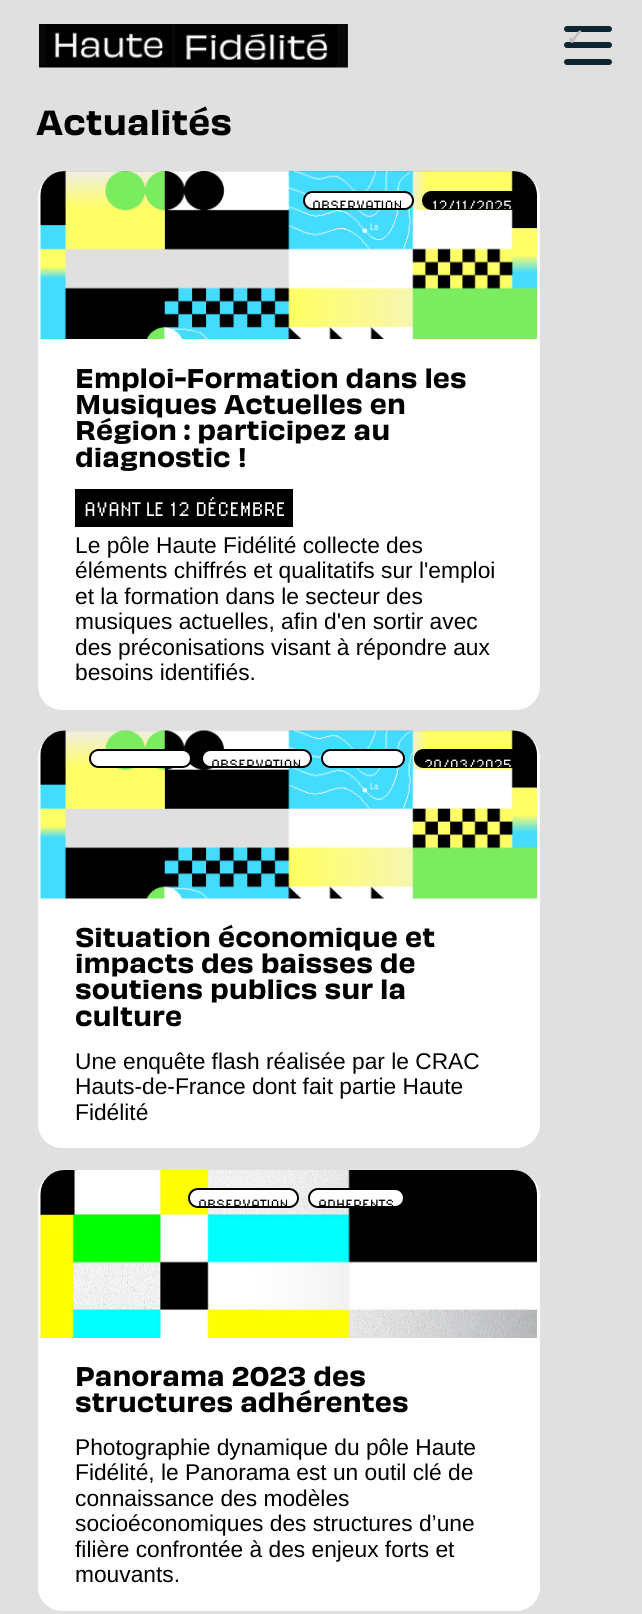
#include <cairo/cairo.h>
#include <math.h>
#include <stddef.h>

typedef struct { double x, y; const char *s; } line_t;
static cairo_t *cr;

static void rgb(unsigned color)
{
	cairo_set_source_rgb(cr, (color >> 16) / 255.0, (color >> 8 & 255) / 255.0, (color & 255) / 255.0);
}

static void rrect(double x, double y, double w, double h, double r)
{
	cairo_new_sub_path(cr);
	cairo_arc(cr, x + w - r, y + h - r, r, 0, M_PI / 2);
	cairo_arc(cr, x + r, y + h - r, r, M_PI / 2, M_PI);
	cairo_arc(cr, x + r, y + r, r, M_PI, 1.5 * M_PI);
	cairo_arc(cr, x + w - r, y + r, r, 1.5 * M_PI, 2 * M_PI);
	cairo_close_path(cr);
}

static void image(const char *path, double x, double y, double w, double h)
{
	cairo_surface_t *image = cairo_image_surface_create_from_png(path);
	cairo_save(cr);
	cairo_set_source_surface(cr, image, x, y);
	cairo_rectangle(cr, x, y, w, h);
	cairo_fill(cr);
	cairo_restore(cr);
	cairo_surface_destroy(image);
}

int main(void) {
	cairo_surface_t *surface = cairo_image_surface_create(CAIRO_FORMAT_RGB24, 642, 1614);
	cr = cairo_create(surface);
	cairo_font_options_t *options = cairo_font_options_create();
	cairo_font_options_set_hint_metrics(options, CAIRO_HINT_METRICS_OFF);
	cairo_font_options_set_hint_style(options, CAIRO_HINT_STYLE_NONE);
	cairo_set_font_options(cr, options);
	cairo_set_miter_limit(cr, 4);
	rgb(0xe0e0e0);
	cairo_paint(cr);
	image("img/1.png", 39, 24, 309, 44);
	rgb(0x0e2431);
	rrect(564, 26, 48, 6, 3);
	cairo_fill(cr);
	rrect(564, 42, 48, 6, 3);
	cairo_fill(cr);
	rrect(564, 59, 48, 6, 3);
	cairo_fill(cr);
	rgb(0xffffff);
	rrect(38, 174, 502, 536, 24);
	cairo_fill(cr);
	image("img/2.png", 40, 171, 497, 168);
	rrect(304, 192, 109, 17, 8.5);
	cairo_fill_preserve(cr);
	rgb(0x000000);
	cairo_stroke(cr);
	rrect(423, 192, 98, 17, 8.5);
	cairo_fill_preserve(cr);
	cairo_stroke(cr);
	cairo_rectangle(cr, 75, 489, 218, 38);
	cairo_fill(cr);
	rgb(0xffffff);
	rrect(38, 734, 502, 414, 24);
	cairo_fill(cr);
	cairo_new_path(cr);
	cairo_move_to(cr, 65, 731);
	cairo_line_to(cr, 513, 731);
	cairo_curve_to(cr, 526.5, 731, 537, 741.5, 537, 755);
	cairo_line_to(cr, 537, 899);
	cairo_line_to(cr, 41, 899);
	cairo_line_to(cr, 41, 755);
	cairo_curve_to(cr, 41, 741.5, 51.5, 731, 65, 731);
	cairo_close_path(cr);
	cairo_fill(cr);
	image("img/3.png", 40, 730, 498, 169);
	rrect(90, 750, 101, 17, 8.5);
	cairo_fill_preserve(cr);
	rgb(0x000000);
	cairo_stroke(cr);
	rgb(0xffffff);
	rrect(202, 750, 109, 17, 8.5);
	cairo_fill_preserve(cr);
	rgb(0x000000);
	cairo_stroke(cr);
	rgb(0xffffff);
	rrect(322, 750, 82, 17, 8.5);
	cairo_fill_preserve(cr);
	rgb(0x000000);
	cairo_stroke(cr);
	rrect(415, 750, 106, 17, 8.5);
	cairo_fill_preserve(cr);
	cairo_stroke(cr);
	rgb(0xffffff);
	rrect(38, 1172, 502, 439, 24);
	cairo_fill(cr);
	image("img/4.png", 40, 1170, 497, 168);
	rrect(189, 1189, 109, 18, 9);
	cairo_fill_preserve(cr);
	rgb(0x000000);
	cairo_stroke(cr);
	rgb(0xffffff);
	rrect(309, 1189, 95, 18, 9);
	cairo_fill_preserve(cr);
	rgb(0x000000);
	cairo_stroke(cr);
	cairo_select_font_face(cr, "DejaVu Sans", CAIRO_FONT_SLANT_NORMAL, CAIRO_FONT_WEIGHT_BOLD);
	cairo_set_font_size(cr, 22);
	rgb(0xbcc0c2);
	cairo_move_to(cr, 566, 45);
	cairo_show_text(cr, "✓");
	cairo_select_font_face(cr, "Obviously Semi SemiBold", CAIRO_FONT_SLANT_NORMAL, CAIRO_FONT_WEIGHT_NORMAL);
	cairo_set_font_size(cr, 32.5);
	rgb(0x000000);
	cairo_move_to(cr, 36, 135);
	cairo_show_text(cr, "Actualités");
	cairo_save(cr);
	rrect(305, 192, 108, 17, 8.5);
	cairo_clip(cr);
	cairo_select_font_face(cr, "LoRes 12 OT", CAIRO_FONT_SLANT_NORMAL, CAIRO_FONT_WEIGHT_NORMAL);
	cairo_set_font_size(cr, 15.5);
	cairo_move_to(cr, 312, 211);
	cairo_show_text(cr, "OBSERVATION");
	cairo_restore(cr);
	cairo_save(cr);
	rrect(423, 192, 98, 17, 8.5);
	cairo_clip(cr);
	cairo_select_font_face(cr, "LoRes 12 OT", CAIRO_FONT_SLANT_NORMAL, CAIRO_FONT_WEIGHT_NORMAL);
	cairo_set_font_size(cr, 15.5);
	rgb(0xffffff);
	cairo_move_to(cr, 432, 211);
	cairo_show_text(cr, "12/11/2025");
	cairo_restore(cr);
	cairo_set_font_size(cr, 25.25);
	{
		static const line_t items[] = {
			{75, 388, "Emploi-Formation dans les"},
			{75, 414, "Musiques Actuelles en"},
			{75, 440, "Région : participez au"},
			{75, 467, "diagnostic !"},
		};
		for (size_t i = 0; i < sizeof items / sizeof *items; i++) {
			cairo_move_to(cr, items[i].x, items[i].y);
			cairo_show_text(cr, items[i].s);
		}
	}
	cairo_select_font_face(cr, "LoRes 12 OT", CAIRO_FONT_SLANT_NORMAL, CAIRO_FONT_WEIGHT_NORMAL);
	cairo_set_font_size(cr, 20.5);
	rgb(0xffffff);
	cairo_move_to(cr, 84, 516);
	cairo_show_text(cr, "AVANT LE 12 DÉCEMBRE");
	cairo_select_font_face(cr, "Liberation Sans", CAIRO_FONT_SLANT_NORMAL, CAIRO_FONT_WEIGHT_NORMAL);
	cairo_set_font_size(cr, 22.75);
	rgb(0x000000);
	{
		static const line_t items[] = {
			{75, 553, "Le pôle Haute Fidélité collecte des"},
			{75, 578, "éléments chiffrés et qualitatifs sur l'emploi"},
			{75, 604, "et la formation dans le secteur des"},
			{75, 629, "musiques actuelles, afin d'en sortir avec"},
			{75, 655, "des préconisations visant à répondre aux"},
			{75, 680, "besoins identifiés."},
		};
		for (size_t i = 0; i < sizeof items / sizeof *items; i++) {
			cairo_move_to(cr, items[i].x, items[i].y);
			cairo_show_text(cr, items[i].s);
		}
	}
	cairo_save(cr);
	rrect(203, 750, 108, 17, 8.5);
	cairo_clip(cr);
	cairo_select_font_face(cr, "LoRes 12 OT", CAIRO_FONT_SLANT_NORMAL, CAIRO_FONT_WEIGHT_NORMAL);
	cairo_set_font_size(cr, 15.5);
	cairo_move_to(cr, 211, 770);
	cairo_show_text(cr, "OBSERVATION");
	cairo_restore(cr);
	cairo_save(cr);
	rrect(416, 750, 105, 17, 8.5);
	cairo_clip(cr);
	cairo_select_font_face(cr, "LoRes 12 OT", CAIRO_FONT_SLANT_NORMAL, CAIRO_FONT_WEIGHT_NORMAL);
	cairo_set_font_size(cr, 15.5);
	rgb(0xffffff);
	cairo_move_to(cr, 424, 770);
	cairo_show_text(cr, "20/03/2025");
	cairo_restore(cr);
	cairo_select_font_face(cr, "Obviously Semi SemiBold", CAIRO_FONT_SLANT_NORMAL, CAIRO_FONT_WEIGHT_NORMAL);
	cairo_set_font_size(cr, 25.25);
	{
		static const line_t items[] = {
			{75, 947, "Situation économique et"},
			{75, 973, "impacts des baisses de"},
			{75, 999, "soutiens publics sur la"},
			{75, 1026, "culture"},
		};
		for (size_t i = 0; i < sizeof items / sizeof *items; i++) {
			cairo_move_to(cr, items[i].x, items[i].y);
			cairo_show_text(cr, items[i].s);
		}
	}
	cairo_select_font_face(cr, "Liberation Sans", CAIRO_FONT_SLANT_NORMAL, CAIRO_FONT_WEIGHT_NORMAL);
	cairo_set_font_size(cr, 22.75);
	{
		static const line_t items[] = {
			{75, 1069, "Une enquête flash réalisée par le CRAC"},
			{75, 1094, "Hauts-de-France dont fait partie Haute"},
			{75, 1120, "Fidélité"},
		};
		for (size_t i = 0; i < sizeof items / sizeof *items; i++) {
			cairo_move_to(cr, items[i].x, items[i].y);
			cairo_show_text(cr, items[i].s);
		}
	}
	cairo_save(cr);
	rrect(189, 1190, 108, 16, 8);
	cairo_clip(cr);
	cairo_select_font_face(cr, "LoRes 12 OT", CAIRO_FONT_SLANT_NORMAL, CAIRO_FONT_WEIGHT_NORMAL);
	cairo_set_font_size(cr, 15.5);
	cairo_move_to(cr, 198, 1210);
	cairo_show_text(cr, "OBSERVATION");
	cairo_restore(cr);
	cairo_save(cr);
	rrect(309, 1190, 95, 16, 8);
	cairo_clip(cr);
	cairo_select_font_face(cr, "LoRes 12 OT", CAIRO_FONT_SLANT_NORMAL, CAIRO_FONT_WEIGHT_NORMAL);
	cairo_set_font_size(cr, 15.5);
	cairo_move_to(cr, 318, 1210);
	cairo_show_text(cr, "ADHERENTS");
	cairo_restore(cr);
	cairo_select_font_face(cr, "Obviously Semi SemiBold", CAIRO_FONT_SLANT_NORMAL, CAIRO_FONT_WEIGHT_NORMAL);
	cairo_set_font_size(cr, 25.25);
	cairo_move_to(cr, 75, 1386);
	cairo_show_text(cr, "Panorama 2023 des");
	cairo_move_to(cr, 75, 1412);
	cairo_show_text(cr, "structures adhérentes");
	cairo_select_font_face(cr, "Liberation Sans", CAIRO_FONT_SLANT_NORMAL, CAIRO_FONT_WEIGHT_NORMAL);
	cairo_set_font_size(cr, 22.75);
	{
		static const line_t items[] = {
			{75, 1455, "Photographie dynamique du pôle Haute"},
			{75, 1480, "Fidélité, le Panorama est un outil clé de"},
			{75, 1506, "connaissance des modèles"},
			{75, 1531, "socioéconomiques des structures d’une"},
			{75, 1557, "filière confrontée à des enjeux forts et"},
			{75, 1582, "mouvants."},
		};
		for (size_t i = 0; i < sizeof items / sizeof *items; i++) {
			cairo_move_to(cr, items[i].x, items[i].y);
			cairo_show_text(cr, items[i].s);
		}
	}
	cairo_surface_write_to_png(surface, "page.png");
	cairo_font_options_destroy(options);
	cairo_destroy(cr);
	cairo_surface_destroy(surface);
	return 0;
}
